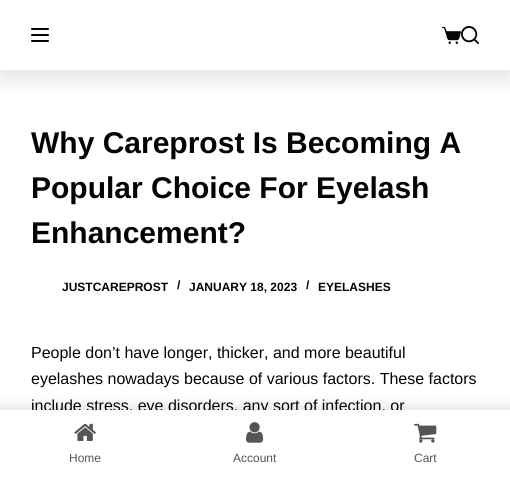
#include <cairo/cairo.h>
#include <math.h>
#include <stddef.h>

typedef struct { double x, y; const char *s; } line_t;
static cairo_t *cr;

static void rgb(unsigned color)
{
	cairo_set_source_rgb(cr, (color >> 16) / 255.0, (color >> 8 & 255) / 255.0, (color & 255) / 255.0);
}

static void rrect(double x, double y, double w, double h, double r)
{
	cairo_new_sub_path(cr);
	cairo_arc(cr, x + w - r, y + h - r, r, 0, M_PI / 2);
	cairo_arc(cr, x + r, y + h - r, r, M_PI / 2, M_PI);
	cairo_arc(cr, x + r, y + r, r, M_PI, 1.5 * M_PI);
	cairo_arc(cr, x + w - r, y + r, r, 1.5 * M_PI, 2 * M_PI);
	cairo_close_path(cr);
}

static void soft_shadow(double x, double y, double w, double h, double r, double blur, double alpha)
{
	cairo_push_group_with_content(cr, CAIRO_CONTENT_ALPHA);
	cairo_set_operator(cr, CAIRO_OPERATOR_SOURCE);
	for (int i = 15; i >= -15 && fmin(w, h) + blur * i / 3 > 0; i -= 2) {
		double e = blur * i / 6;
		cairo_set_source_rgba(cr, 0, 0, 0, alpha * erfc((i - 1) / 8.5) / 2);
		rrect(x - e, y - e, w + 2 * e, h + 2 * e, fmax(0, fmin(r + e + blur * .6, fmin(w, h) / 2 + e)));
		cairo_fill(cr);
	}
	cairo_pattern_t *soft = cairo_pop_group(cr);
	cairo_mask(cr, soft);
	cairo_pattern_destroy(soft);
}

static void image(const char *path, double x, double y, double w, double h)
{
	cairo_surface_t *image = cairo_image_surface_create_from_png(path);
	cairo_save(cr);
	cairo_set_source_surface(cr, image, x, y);
	cairo_rectangle(cr, x, y, w, h);
	cairo_fill(cr);
	cairo_restore(cr);
	cairo_surface_destroy(image);
}

int main(void) {
	cairo_surface_t *surface = cairo_image_surface_create(CAIRO_FORMAT_RGB24, 510, 479);
	cr = cairo_create(surface);
	cairo_font_options_t *options = cairo_font_options_create();
	cairo_font_options_set_hint_metrics(options, CAIRO_HINT_METRICS_OFF);
	cairo_font_options_set_hint_style(options, CAIRO_HINT_STYLE_NONE);
	cairo_set_font_options(cr, options);
	cairo_set_miter_limit(cr, 4);
	rgb(0xffffff);
	cairo_paint(cr);
	cairo_save(cr);
	cairo_rectangle(cr, 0, 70, 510, 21);
	cairo_clip(cr);
	rgb(0x2b3d4f);
	soft_shadow(0, 10, 510, 70, 0, 10, 0.14);
	cairo_restore(cr);
	rgb(0x040404);
	rrect(31, 28, 18, 2, 1);
	cairo_fill(cr);
	rrect(31, 34, 18, 2, 1);
	cairo_fill(cr);
	rrect(31, 40, 18, 2, 1);
	cairo_fill(cr);
	image("img/1.png", 442, 26, 19, 18);
	image("img/2.png", 461, 26, 18, 18);
	rgb(0x000000);
	soft_shadow(0, 405, 510, 69, 0, 5, 0.1);
	cairo_select_font_face(cr, "Liberation Sans", CAIRO_FONT_SLANT_NORMAL, CAIRO_FONT_WEIGHT_BOLD);
	cairo_set_font_size(cr, 30);
	rgb(0x040404);
	{
		static const line_t items[] = {
			{31, 153, "Why Careprost Is Becoming A"},
			{31, 198, "Popular Choice For Eyelash"},
			{31, 243, "Enhancement?"},
		};
		for (size_t i = 0; i < sizeof items / sizeof *items; i++) {
			cairo_move_to(cr, items[i].x, items[i].y);
			cairo_show_text(cr, items[i].s);
		}
	}
	cairo_set_font_size(cr, 12);
	{
		static const line_t items[] = {
			{62, 291, "JUSTCAREPROST"},
			{177, 289, "/"},
			{189, 291, "JANUARY 18, 2023"},
			{306, 289, "/"},
			{318, 291, "EYELASHES"},
		};
		for (size_t i = 0; i < sizeof items / sizeof *items; i++) {
			cairo_move_to(cr, items[i].x, items[i].y);
			cairo_show_text(cr, items[i].s);
		}
	}
	cairo_select_font_face(cr, "Liberation Sans", CAIRO_FONT_SLANT_NORMAL, CAIRO_FONT_WEIGHT_NORMAL);
	cairo_set_font_size(cr, 16);
	{
		static const line_t items[] = {
			{31, 358, "People don’t have longer, thicker, and more beautiful"},
			{31, 384, "eyelashes nowadays because of various factors. These factors"},
			{31, 411, "include stress, eye disorders, any sort of infection, or"},
		};
		for (size_t i = 0; i < sizeof items / sizeof *items; i++) {
			cairo_move_to(cr, items[i].x, items[i].y);
			cairo_show_text(cr, items[i].s);
		}
	}
	rgb(0xffffff);
	cairo_rectangle(cr, 0, 410, 510, 69);
	cairo_fill(cr);
	image("img/3.png", 74, 423, 22, 18);
	cairo_set_font_size(cr, 12);
	rgb(0x555555);
	cairo_move_to(cr, 69, 462);
	cairo_show_text(cr, "Home");
	image("img/4.png", 246, 422, 18, 21);
	cairo_move_to(cr, 233, 462);
	cairo_show_text(cr, "Account");
	image("img/5.png", 414, 423, 23, 20);
	cairo_move_to(cr, 414, 462);
	cairo_show_text(cr, "Cart");
	cairo_surface_write_to_png(surface, "page.png");
	cairo_font_options_destroy(options);
	cairo_destroy(cr);
	cairo_surface_destroy(surface);
	return 0;
}
